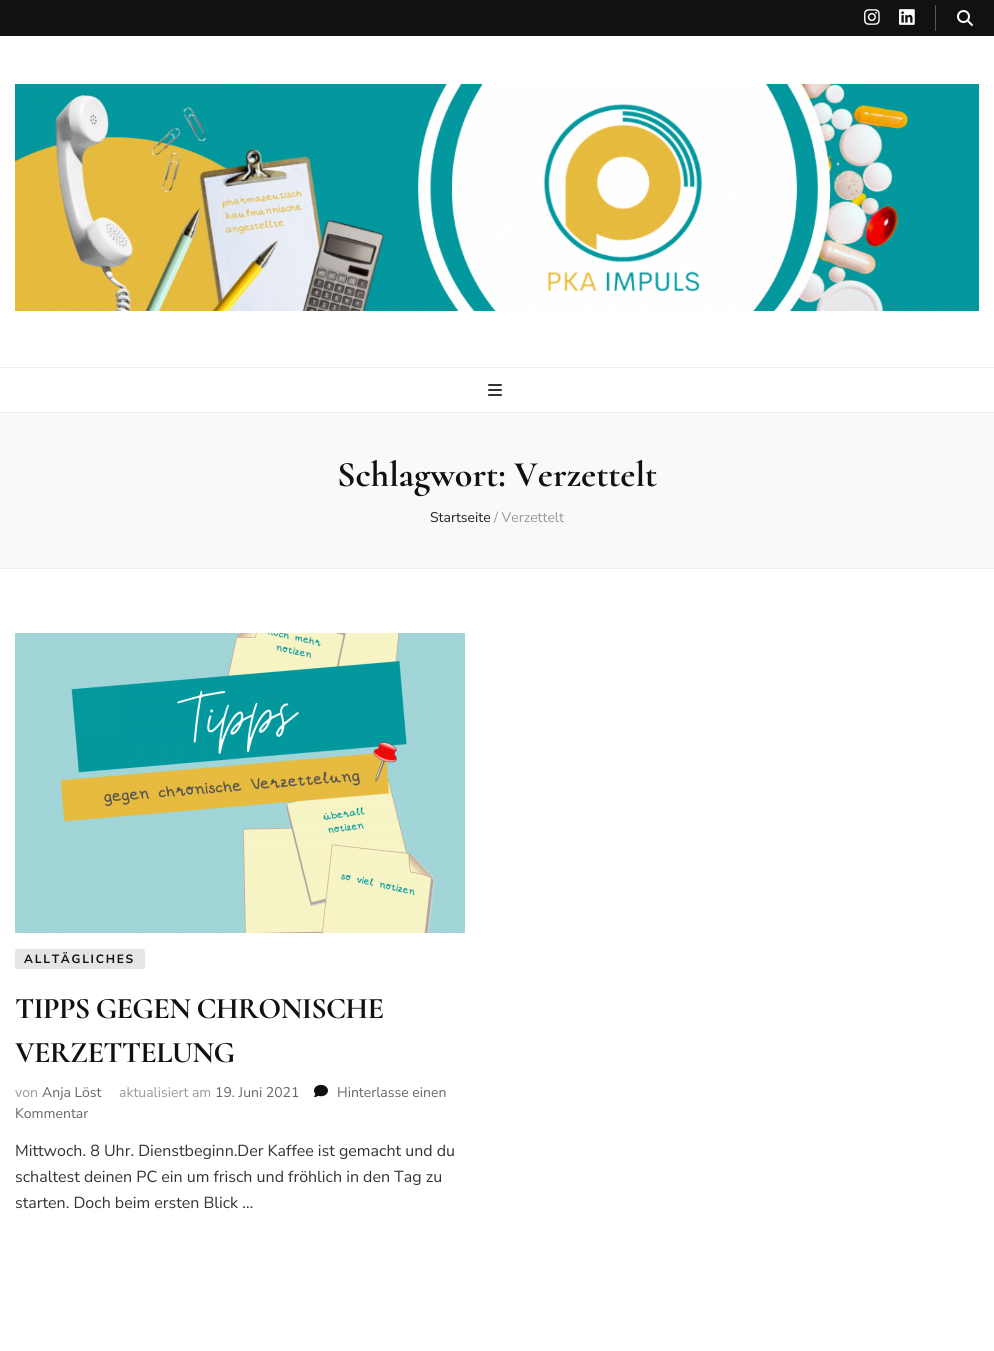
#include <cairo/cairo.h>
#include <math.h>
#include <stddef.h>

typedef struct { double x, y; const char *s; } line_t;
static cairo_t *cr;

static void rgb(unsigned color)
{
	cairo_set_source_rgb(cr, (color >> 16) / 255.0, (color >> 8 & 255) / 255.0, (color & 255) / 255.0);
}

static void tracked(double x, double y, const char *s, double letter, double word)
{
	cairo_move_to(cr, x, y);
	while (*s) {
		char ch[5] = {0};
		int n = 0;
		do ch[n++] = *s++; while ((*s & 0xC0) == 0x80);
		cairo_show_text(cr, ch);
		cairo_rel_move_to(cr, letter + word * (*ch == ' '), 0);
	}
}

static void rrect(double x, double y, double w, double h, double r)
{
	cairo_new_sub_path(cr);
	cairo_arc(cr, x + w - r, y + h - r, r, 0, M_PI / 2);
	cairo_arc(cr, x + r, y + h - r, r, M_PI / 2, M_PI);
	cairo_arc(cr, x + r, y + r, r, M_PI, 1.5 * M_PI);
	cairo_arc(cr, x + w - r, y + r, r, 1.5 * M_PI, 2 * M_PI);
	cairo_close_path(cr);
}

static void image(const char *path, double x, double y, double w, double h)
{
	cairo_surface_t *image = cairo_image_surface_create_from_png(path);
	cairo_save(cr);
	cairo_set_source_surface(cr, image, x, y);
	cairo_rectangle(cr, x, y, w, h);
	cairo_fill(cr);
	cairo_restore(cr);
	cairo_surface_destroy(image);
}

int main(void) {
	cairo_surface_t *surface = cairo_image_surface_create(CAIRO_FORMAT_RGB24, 994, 1351);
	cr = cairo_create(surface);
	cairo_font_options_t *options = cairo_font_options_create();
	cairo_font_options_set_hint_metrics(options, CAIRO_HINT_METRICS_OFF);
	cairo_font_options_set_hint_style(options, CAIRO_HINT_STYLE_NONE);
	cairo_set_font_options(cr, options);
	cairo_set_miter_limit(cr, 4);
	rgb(0xffffff);
	cairo_paint(cr);
	rgb(0x111111);
	cairo_rectangle(cr, 0, 0, 994, 36);
	cairo_fill(cr);
	rgb(0x595959);
	cairo_rectangle(cr, 935, 5, 1, 26);
	cairo_fill(cr);
	image("img/1.png", 864, 9, 16, 16);
	image("img/2.png", 899, 9, 16, 16);
	image("img/3.png", 957, 10, 16, 16);
	image("img/4.png", 15, 84, 964, 227);
	rgb(0xeeeeee);
	cairo_rectangle(cr, 0, 367, 994, 1);
	cairo_fill(cr);
	cairo_rectangle(cr, 0, 412, 994, 1);
	cairo_fill(cr);
	image("img/5.png", 488, 384, 14, 12);
	rgb(0xf9f9f9);
	cairo_rectangle(cr, 0, 413, 994, 155);
	cairo_fill(cr);
	rgb(0xeeeeee);
	cairo_rectangle(cr, 0, 568, 994, 1);
	cairo_fill(cr);
	image("img/6.png", 15, 633, 450, 300);
	rgb(0xe5e5e5);
	rrect(15, 949, 130, 20, 3);
	cairo_fill(cr);
	image("img/7.png", 314, 1084, 14, 14);
	cairo_select_font_face(cr, "Cormorant", CAIRO_FONT_SLANT_NORMAL, CAIRO_FONT_WEIGHT_BOLD);
	cairo_set_font_size(cr, 36);
	rgb(0x111111);
	cairo_move_to(cr, 337, 486);
	cairo_show_text(cr, "Schlagwort: Verzettelt");
	cairo_select_font_face(cr, "Nunito Sans", CAIRO_FONT_SLANT_NORMAL, CAIRO_FONT_WEIGHT_NORMAL);
	cairo_set_font_size(cr, 14);
	rgb(0x222222);
	cairo_move_to(cr, 430, 522);
	cairo_show_text(cr, "Startseite");
	rgb(0x999999);
	cairo_move_to(cr, 494, 522);
	cairo_show_text(cr, "/ Verzettelt");
	cairo_select_font_face(cr, "Nunito Sans", CAIRO_FONT_SLANT_NORMAL, CAIRO_FONT_WEIGHT_BOLD);
	cairo_set_font_size(cr, 12);
	rgb(0x111111);
	tracked(24, 963, "ALLTÄGLICHES", 1.75, 0);
	cairo_select_font_face(cr, "Cormorant", CAIRO_FONT_SLANT_NORMAL, CAIRO_FONT_WEIGHT_BOLD);
	cairo_set_font_size(cr, 30);
	tracked(15, 1018, "TIPPS GEGEN CHRONISCHE", -0.75, 0);
	tracked(15, 1062, "VERZETTELUNG", -0.75, 0);
	cairo_select_font_face(cr, "Nunito Sans", CAIRO_FONT_SLANT_NORMAL, CAIRO_FONT_WEIGHT_NORMAL);
	cairo_set_font_size(cr, 14);
	rgb(0x666666);
	cairo_move_to(cr, 337, 1097);
	cairo_show_text(cr, "Hinterlasse einen");
	cairo_move_to(cr, 15, 1118);
	cairo_show_text(cr, "Kommentar");
	rgb(0x999999);
	cairo_move_to(cr, 15, 1097);
	cairo_show_text(cr, "von");
	rgb(0x666666);
	cairo_move_to(cr, 42, 1097);
	cairo_show_text(cr, "Anja Löst");
	rgb(0x999999);
	cairo_move_to(cr, 119, 1097);
	cairo_show_text(cr, "aktualisiert am");
	rgb(0x666666);
	cairo_move_to(cr, 215, 1097);
	cairo_show_text(cr, "19. Juni 2021");
	cairo_set_font_size(cr, 16);
	rgb(0x333333);
	{
		static const line_t items[] = {
			{15, 1156, "Mittwoch. 8 Uhr. Dienstbeginn.Der Kaffee ist gemacht und du"},
			{15, 1182, "schaltest deinen PC ein um frisch und fröhlich in den Tag zu"},
			{15, 1208, "starten. Doch beim ersten Blick …"},
		};
		for (size_t i = 0; i < sizeof items / sizeof *items; i++) {
			cairo_move_to(cr, items[i].x, items[i].y);
			cairo_show_text(cr, items[i].s);
		}
	}
	cairo_surface_write_to_png(surface, "page.png");
	cairo_font_options_destroy(options);
	cairo_destroy(cr);
	cairo_surface_destroy(surface);
	return 0;
}
